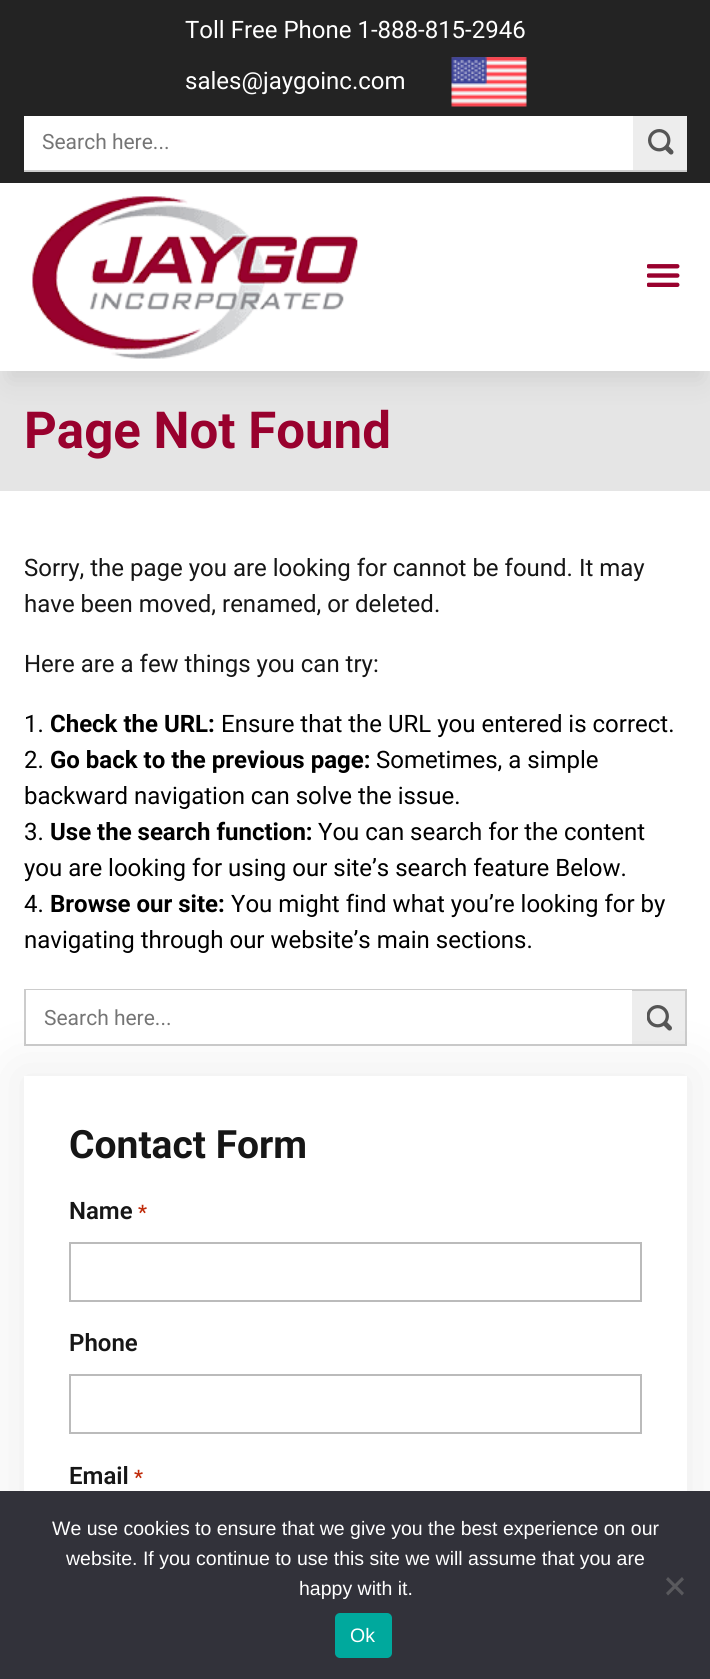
#include <cairo/cairo.h>
#include <math.h>
#include <stddef.h>

typedef struct { double x, y; const char *s; } line_t;
typedef struct { double x, y, w, h; unsigned color; } box_t;
static cairo_t *cr;

static void rgb(unsigned color)
{
	cairo_set_source_rgb(cr, (color >> 16) / 255.0, (color >> 8 & 255) / 255.0, (color & 255) / 255.0);
}

static void rrect(double x, double y, double w, double h, double r)
{
	cairo_new_sub_path(cr);
	cairo_arc(cr, x + w - r, y + h - r, r, 0, M_PI / 2);
	cairo_arc(cr, x + r, y + h - r, r, M_PI / 2, M_PI);
	cairo_arc(cr, x + r, y + r, r, M_PI, 1.5 * M_PI);
	cairo_arc(cr, x + w - r, y + r, r, 1.5 * M_PI, 2 * M_PI);
	cairo_close_path(cr);
}

static void soft_shadow(double x, double y, double w, double h, double r, double blur, double alpha)
{
	cairo_push_group_with_content(cr, CAIRO_CONTENT_ALPHA);
	cairo_set_operator(cr, CAIRO_OPERATOR_SOURCE);
	for (int i = 15; i >= -15 && fmin(w, h) + blur * i / 3 > 0; i -= 2) {
		double e = blur * i / 6;
		cairo_set_source_rgba(cr, 0, 0, 0, alpha * erfc((i - 1) / 8.5) / 2);
		rrect(x - e, y - e, w + 2 * e, h + 2 * e, fmax(0, fmin(r + e + blur * .6, fmin(w, h) / 2 + e)));
		cairo_fill(cr);
	}
	cairo_pattern_t *soft = cairo_pop_group(cr);
	cairo_mask(cr, soft);
	cairo_pattern_destroy(soft);
}

static void image(const char *path, double x, double y, double w, double h)
{
	cairo_surface_t *image = cairo_image_surface_create_from_png(path);
	cairo_save(cr);
	cairo_set_source_surface(cr, image, x, y);
	cairo_rectangle(cr, x, y, w, h);
	cairo_fill(cr);
	cairo_restore(cr);
	cairo_surface_destroy(image);
}

int main(void) {
	cairo_surface_t *surface = cairo_image_surface_create(CAIRO_FORMAT_RGB24, 710, 1679);
	cr = cairo_create(surface);
	cairo_font_options_t *options = cairo_font_options_create();
	cairo_font_options_set_hint_metrics(options, CAIRO_HINT_METRICS_OFF);
	cairo_font_options_set_hint_style(options, CAIRO_HINT_STYLE_NONE);
	cairo_set_font_options(cr, options);
	cairo_set_miter_limit(cr, 4);
	rgb(0xffffff);
	cairo_paint(cr);
	rgb(0xe5e5e5);
	cairo_rectangle(cr, 0, 371, 710, 120);
	cairo_fill(cr);
	cairo_save(cr);
	cairo_set_fill_rule(cr, CAIRO_FILL_RULE_EVEN_ODD);
	cairo_new_path(cr);
	cairo_move_to(cr, 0, 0);
	cairo_line_to(cr, 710, 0);
	cairo_line_to(cr, 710, 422);
	cairo_line_to(cr, 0, 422);
	cairo_close_path(cr);
	cairo_move_to(cr, 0, 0);
	cairo_line_to(cr, 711, 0);
	cairo_line_to(cr, 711, 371);
	cairo_line_to(cr, 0, 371);
	cairo_close_path(cr);
	cairo_clip(cr);
	rgb(0x000000);
	soft_shadow(9, 27, 693, 353, 0, 13.5, 0.09);
	cairo_restore(cr);
	rgb(0x232323);
	cairo_rectangle(cr, 0, 0, 710, 183);
	cairo_fill(cr);
	image("img/1.png", 451, 57, 76, 50);
	{
		static const box_t items[] = {
			{633, 116, 54, 54, 0xededed},
			{24, 170, 663, 2, 0xcccccc},
			{24, 116, 609, 54, 0xffffff},
		};
		for (size_t i = 0; i < sizeof items / sizeof *items; i++) {
			rgb(items[i].color);
			cairo_rectangle(cr, items[i].x, items[i].y, items[i].w, items[i].h);
			cairo_fill(cr);
		}
	}
	image("img/2.png", 648, 129, 26, 26);
	image("img/3.png", 32, 196, 326, 163);
	image("img/4.png", 647, 264, 33, 23);
	rgb(0xededed);
	cairo_rectangle(cr, 632, 991, 53, 53);
	cairo_fill(cr);
	cairo_rectangle(cr, 25, 990, 661, 55);
	rgb(0xcccccc);
	cairo_stroke(cr);
	cairo_save(cr);
	cairo_set_fill_rule(cr, CAIRO_FILL_RULE_EVEN_ODD);
	cairo_new_path(cr);
	cairo_move_to(cr, 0, 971);
	cairo_line_to(cr, 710, 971);
	cairo_line_to(cr, 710, 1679);
	cairo_line_to(cr, 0, 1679);
	cairo_close_path(cr);
	cairo_move_to(cr, 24, 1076);
	cairo_line_to(cr, 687, 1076);
	cairo_line_to(cr, 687, 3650);
	cairo_line_to(cr, 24, 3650);
	cairo_close_path(cr);
	cairo_clip(cr);
	rgb(0x000000);
	soft_shadow(14, 1068, 684, 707, 0, 32, 0.07);
	cairo_restore(cr);
	rgb(0xffffff);
	cairo_rectangle(cr, 26, 990, 606, 54);
	cairo_fill(cr);
	image("img/5.png", 647, 1005, 25, 26);
	cairo_rectangle(cr, 70, 1243, 571, 58);
	rgb(0xbbbbbb);
	cairo_stroke(cr);
	cairo_rectangle(cr, 70, 1375, 571, 58);
	cairo_stroke(cr);
	rgb(0x32323a);
	cairo_rectangle(cr, 0, 1491, 710, 188);
	cairo_fill(cr);
	rgb(0x59595d);
	cairo_new_path(cr);
	cairo_move_to(cr, 682, 1577);
	cairo_line_to(cr, 684, 1579.5);
	cairo_line_to(cr, 668, 1595.5);
	cairo_line_to(cr, 666, 1593);
	cairo_close_path(cr);
	cairo_fill(cr);
	cairo_new_path(cr);
	cairo_move_to(cr, 666, 1579.5);
	cairo_line_to(cr, 668, 1577);
	cairo_line_to(cr, 684, 1593);
	cairo_line_to(cr, 682, 1595.5);
	cairo_close_path(cr);
	cairo_fill(cr);
	rgb(0x00a99d);
	rrect(335, 1613, 57, 45, 5);
	cairo_fill(cr);
	cairo_select_font_face(cr, "Roboto", CAIRO_FONT_SLANT_NORMAL, CAIRO_FONT_WEIGHT_NORMAL);
	cairo_set_font_size(cr, 24);
	rgb(0xffffff);
	cairo_move_to(cr, 185, 38);
	cairo_show_text(cr, "Toll Free Phone 1-888-815-2946");
	cairo_move_to(cr, 185, 89);
	cairo_show_text(cr, "sales@jaygoinc.com");
	cairo_set_font_size(cr, 21);
	rgb(0x757575);
	cairo_move_to(cr, 42, 149);
	cairo_show_text(cr, "Search here...");
	cairo_select_font_face(cr, "Roboto", CAIRO_FONT_SLANT_NORMAL, CAIRO_FONT_WEIGHT_BOLD);
	cairo_set_font_size(cr, 51);
	rgb(0x99012e);
	cairo_move_to(cr, 24, 448);
	cairo_show_text(cr, "Page Not Found");
	cairo_select_font_face(cr, "Roboto", CAIRO_FONT_SLANT_NORMAL, CAIRO_FONT_WEIGHT_NORMAL);
	cairo_set_font_size(cr, 24);
	rgb(0x161616);
	{
		static const line_t items[] = {
			{24, 576, "Sorry, the page you are looking for cannot be found. It may"},
			{24, 612, "have been moved, renamed, or deleted."},
			{24, 672, "Here are a few things you can try:"},
		};
		for (size_t i = 0; i < sizeof items / sizeof *items; i++) {
			cairo_move_to(cr, items[i].x, items[i].y);
			cairo_show_text(cr, items[i].s);
		}
	}
	rgb(0x000000);
	cairo_move_to(cr, 24, 732);
	cairo_show_text(cr, "1.");
	cairo_select_font_face(cr, "Roboto", CAIRO_FONT_SLANT_NORMAL, CAIRO_FONT_WEIGHT_BOLD);
	cairo_move_to(cr, 50, 732);
	cairo_show_text(cr, "Check the URL:");
	cairo_select_font_face(cr, "Roboto", CAIRO_FONT_SLANT_NORMAL, CAIRO_FONT_WEIGHT_NORMAL);
	cairo_move_to(cr, 221, 732);
	cairo_show_text(cr, "Ensure that the URL you entered is correct.");
	cairo_move_to(cr, 24, 768);
	cairo_show_text(cr, "2.");
	cairo_select_font_face(cr, "Roboto", CAIRO_FONT_SLANT_NORMAL, CAIRO_FONT_WEIGHT_BOLD);
	cairo_move_to(cr, 50, 768);
	cairo_show_text(cr, "Go back to the previous page:");
	cairo_select_font_face(cr, "Roboto", CAIRO_FONT_SLANT_NORMAL, CAIRO_FONT_WEIGHT_NORMAL);
	{
		static const line_t items[] = {
			{376, 768, "Sometimes, a simple"},
			{24, 804, "backward navigation can solve the issue."},
			{24, 840, "3."},
		};
		for (size_t i = 0; i < sizeof items / sizeof *items; i++) {
			cairo_move_to(cr, items[i].x, items[i].y);
			cairo_show_text(cr, items[i].s);
		}
	}
	cairo_select_font_face(cr, "Roboto", CAIRO_FONT_SLANT_NORMAL, CAIRO_FONT_WEIGHT_BOLD);
	cairo_move_to(cr, 50, 840);
	cairo_show_text(cr, "Use the search function:");
	cairo_select_font_face(cr, "Roboto", CAIRO_FONT_SLANT_NORMAL, CAIRO_FONT_WEIGHT_NORMAL);
	{
		static const line_t items[] = {
			{318, 840, "You can search for the content"},
			{24, 876, "you are looking for using our site’s search feature Below."},
			{24, 912, "4."},
		};
		for (size_t i = 0; i < sizeof items / sizeof *items; i++) {
			cairo_move_to(cr, items[i].x, items[i].y);
			cairo_show_text(cr, items[i].s);
		}
	}
	cairo_select_font_face(cr, "Roboto", CAIRO_FONT_SLANT_NORMAL, CAIRO_FONT_WEIGHT_BOLD);
	cairo_move_to(cr, 50, 912);
	cairo_show_text(cr, "Browse our site:");
	cairo_select_font_face(cr, "Roboto", CAIRO_FONT_SLANT_NORMAL, CAIRO_FONT_WEIGHT_NORMAL);
	cairo_move_to(cr, 231, 912);
	cairo_show_text(cr, "You might find what you’re looking for by");
	cairo_move_to(cr, 24, 948);
	cairo_show_text(cr, "navigating through our website’s main sections.");
	cairo_set_font_size(cr, 21);
	rgb(0x757575);
	cairo_move_to(cr, 44, 1025);
	cairo_show_text(cr, "Search here...");
	cairo_select_font_face(cr, "Roboto", CAIRO_FONT_SLANT_NORMAL, CAIRO_FONT_WEIGHT_BOLD);
	cairo_set_font_size(cr, 39);
	rgb(0x161616);
	cairo_move_to(cr, 69, 1158);
	cairo_show_text(cr, "Contact Form");
	cairo_select_font_face(cr, "Roboto SemiBold", CAIRO_FONT_SLANT_NORMAL, CAIRO_FONT_WEIGHT_NORMAL);
	cairo_set_font_size(cr, 24);
	cairo_move_to(cr, 69, 1219);
	cairo_show_text(cr, "Name");
	cairo_set_font_size(cr, 20);
	rgb(0xc02b0a);
	cairo_move_to(cr, 138, 1219);
	cairo_show_text(cr, "*");
	cairo_set_font_size(cr, 24);
	rgb(0x161616);
	cairo_move_to(cr, 69, 1351);
	cairo_show_text(cr, "Phone");
	cairo_move_to(cr, 69, 1484);
	cairo_show_text(cr, "Email");
	cairo_set_font_size(cr, 20);
	rgb(0xc02b0a);
	cairo_move_to(cr, 134, 1484);
	cairo_show_text(cr, "*");
	cairo_select_font_face(cr, "Liberation Sans", CAIRO_FONT_SLANT_NORMAL, CAIRO_FONT_WEIGHT_NORMAL);
	cairo_set_font_size(cr, 19.5);
	rgb(0xffffff);
	{
		static const line_t items[] = {
			{52, 1535, "We use cookies to ensure that we give you the best experience on our"},
			{66, 1565, "website. If you continue to use this site we will assume that you are"},
			{299, 1595, "happy with it."},
			{350, 1642, "Ok"},
		};
		for (size_t i = 0; i < sizeof items / sizeof *items; i++) {
			cairo_move_to(cr, items[i].x, items[i].y);
			cairo_show_text(cr, items[i].s);
		}
	}
	cairo_surface_write_to_png(surface, "page.png");
	cairo_font_options_destroy(options);
	cairo_destroy(cr);
	cairo_surface_destroy(surface);
	return 0;
}
